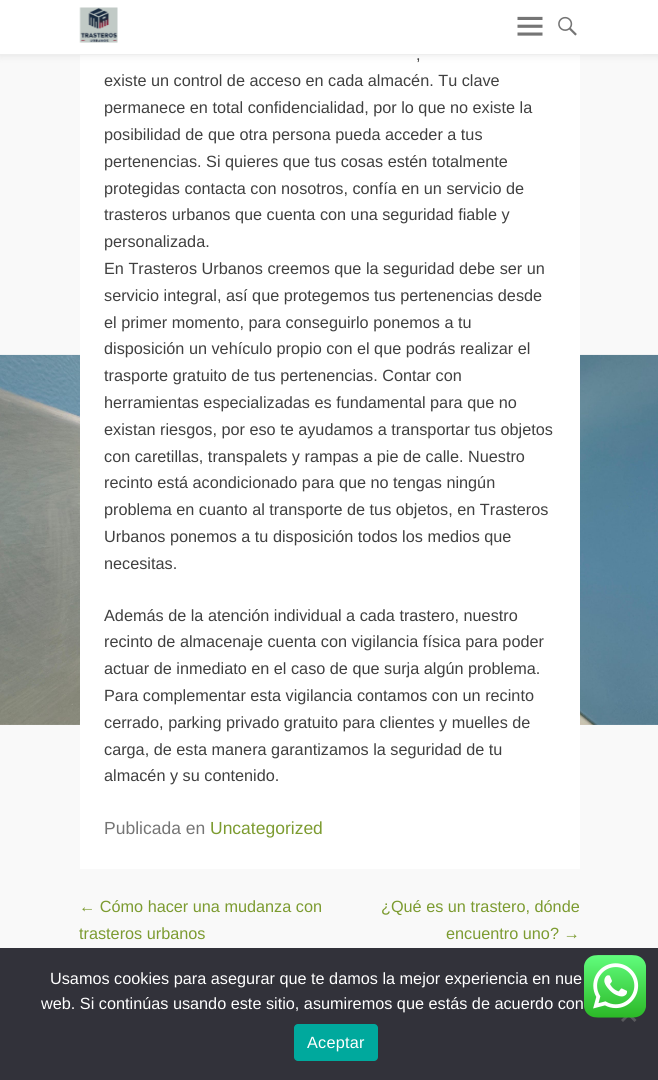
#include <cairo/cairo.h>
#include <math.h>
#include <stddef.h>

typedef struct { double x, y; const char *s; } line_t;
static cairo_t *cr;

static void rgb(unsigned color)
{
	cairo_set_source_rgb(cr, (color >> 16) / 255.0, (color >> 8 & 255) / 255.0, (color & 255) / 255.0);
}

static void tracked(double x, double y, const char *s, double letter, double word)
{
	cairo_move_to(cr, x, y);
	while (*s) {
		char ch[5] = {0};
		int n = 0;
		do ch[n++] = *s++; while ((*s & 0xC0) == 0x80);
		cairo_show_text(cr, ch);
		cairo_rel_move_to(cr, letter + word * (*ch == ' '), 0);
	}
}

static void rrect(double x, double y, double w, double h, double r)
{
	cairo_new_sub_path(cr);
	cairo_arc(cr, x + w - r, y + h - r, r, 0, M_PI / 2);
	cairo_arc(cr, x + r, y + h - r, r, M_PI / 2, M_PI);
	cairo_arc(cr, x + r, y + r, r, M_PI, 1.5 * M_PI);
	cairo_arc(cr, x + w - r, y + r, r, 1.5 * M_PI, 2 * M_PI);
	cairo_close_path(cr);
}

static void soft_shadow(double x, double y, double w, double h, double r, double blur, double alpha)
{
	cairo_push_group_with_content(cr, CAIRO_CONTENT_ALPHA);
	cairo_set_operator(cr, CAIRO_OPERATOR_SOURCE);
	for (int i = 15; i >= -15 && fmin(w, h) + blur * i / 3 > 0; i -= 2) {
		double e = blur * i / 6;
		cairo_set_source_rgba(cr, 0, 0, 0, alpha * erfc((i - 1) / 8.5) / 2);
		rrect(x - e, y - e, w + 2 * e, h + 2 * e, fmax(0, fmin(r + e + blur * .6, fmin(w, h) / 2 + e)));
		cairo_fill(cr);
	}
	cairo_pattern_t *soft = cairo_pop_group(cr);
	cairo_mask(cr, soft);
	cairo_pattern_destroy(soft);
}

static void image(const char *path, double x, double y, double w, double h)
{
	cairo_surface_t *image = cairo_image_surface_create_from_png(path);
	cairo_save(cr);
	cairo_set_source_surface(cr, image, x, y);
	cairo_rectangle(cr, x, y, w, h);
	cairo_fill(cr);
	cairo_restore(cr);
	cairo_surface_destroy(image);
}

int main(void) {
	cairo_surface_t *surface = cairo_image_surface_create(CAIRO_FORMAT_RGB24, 658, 1080);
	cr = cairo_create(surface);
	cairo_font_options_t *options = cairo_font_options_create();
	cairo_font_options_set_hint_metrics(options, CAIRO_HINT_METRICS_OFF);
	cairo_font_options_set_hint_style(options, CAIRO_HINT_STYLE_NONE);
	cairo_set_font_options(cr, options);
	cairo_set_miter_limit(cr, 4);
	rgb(0xf9f9f9);
	cairo_paint(cr);
	image("img/1.png", 0, 354, 658, 371);
	rgb(0xffffff);
	cairo_rectangle(cr, 80, 55, 500, 814);
	cairo_fill(cr);
	rgb(0x000000);
	soft_shadow(0, 0, 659, 55, 0, 4.5, 0.1);
	rgb(0xffffff);
	cairo_rectangle(cr, 0, 0, 658, 54);
	cairo_fill(cr);
	rgb(0xeeeeee);
	cairo_rectangle(cr, 0, 54, 643, 1);
	cairo_fill(cr);
	image("img/2.png", 79, 7, 39, 36);
	image("img/3.png", 517, 16, 26, 20);
	image("img/4.png", 558, 16, 19, 20);
	rgb(0x32323a);
	cairo_rectangle(cr, 0, 948, 658, 132);
	cairo_fill(cr);
	rgb(0x59595d);
	cairo_new_path(cr);
	cairo_move_to(cr, 634.5, 1007);
	cairo_line_to(cr, 636.5, 1008.5);
	cairo_line_to(cr, 623, 1022);
	cairo_line_to(cr, 621, 1020);
	cairo_close_path(cr);
	cairo_fill(cr);
	cairo_new_path(cr);
	cairo_move_to(cr, 621, 1008.5);
	cairo_line_to(cr, 623, 1007);
	cairo_line_to(cr, 636.5, 1020);
	cairo_line_to(cr, 634.5, 1022);
	cairo_close_path(cr);
	cairo_fill(cr);
	rgb(0x00a99d);
	rrect(294, 1024, 84, 37, 4);
	cairo_fill(cr);
	image("img/5.png", 584, 955, 62, 63);
	cairo_select_font_face(cr, "Liberation Sans", CAIRO_FONT_SLANT_NORMAL, CAIRO_FONT_WEIGHT_NORMAL);
	cairo_set_font_size(cr, 16.25);
	rgb(0x404040);
	{
		static const line_t items[] = {
			{416, 60, ","},
			{104, 86, "existe un control de acceso en cada almacén. Tu clave"},
			{104, 113, "permanece en total confidencialidad, por lo que no existe la"},
			{104, 140, "posibilidad de que otra persona pueda acceder a tus"},
			{104, 167, "pertenencias. Si quieres que tus cosas estén totalmente"},
			{104, 194, "protegidas contacta con nosotros, confía en un servicio de"},
			{104, 220, "trasteros urbanos que cuenta con una seguridad fiable y"},
			{104, 247, "personalizada."},
			{104, 274, "En Trasteros Urbanos creemos que la seguridad debe ser un"},
			{104, 301, "servicio integral, así que protegemos tus pertenencias desde"},
			{104, 328, "el primer momento, para conseguirlo ponemos a tu"},
			{104, 354, "disposición un vehículo propio con el que podrás realizar el"},
			{104, 381, "trasporte gratuito de tus pertenencias. Contar con"},
			{104, 408, "herramientas especializadas es fundamental para que no"},
			{104, 435, "existan riesgos, por eso te ayudamos a transportar tus objetos"},
			{104, 462, "con caretillas, transpalets y rampas a pie de calle. Nuestro"},
			{104, 488, "recinto está acondicionado para que no tengas ningún"},
			{104, 515, "problema en cuanto al transporte de tus objetos, en Trasteros"},
			{104, 542, "Urbanos ponemos a tu disposición todos los medios que"},
			{104, 569, "necesitas."},
			{104, 621, "Además de la atención individual a cada trastero, nuestro"},
			{104, 647, "recinto de almacenaje cuenta con vigilancia física para poder"},
			{104, 674, "actuar de inmediato en el caso de que surja algún problema."},
			{104, 701, "Para complementar esta vigilancia contamos con un recinto"},
			{104, 728, "cerrado, parking privado gratuito para clientes y muelles de"},
			{104, 755, "carga, de esta manera garantizamos la seguridad de tu"},
			{104, 781, "almacén y su contenido."},
		};
		for (size_t i = 0; i < sizeof items / sizeof *items; i++) {
			cairo_move_to(cr, items[i].x, items[i].y);
			cairo_show_text(cr, items[i].s);
		}
	}
	cairo_set_font_size(cr, 17.5);
	rgb(0x757575);
	cairo_move_to(cr, 104, 834);
	cairo_show_text(cr, "Publicada en");
	rgb(0x7c9b30);
	cairo_move_to(cr, 210, 834);
	cairo_show_text(cr, "Uncategorized");
	cairo_set_font_size(cr, 16.25);
	{
		static const line_t items[] = {
			{79, 912, "← Cómo hacer una mudanza con"},
			{79, 939, "trasteros urbanos"},
			{381, 912, "¿Qué es un trastero, dónde"},
			{446, 939, "encuentro uno? →"},
		};
		for (size_t i = 0; i < sizeof items / sizeof *items; i++) {
			cairo_move_to(cr, items[i].x, items[i].y);
			cairo_show_text(cr, items[i].s);
		}
	}
	rgb(0xffffff);
	cairo_move_to(cr, 50, 984);
	cairo_show_text(cr, "Usamos cookies para asegurar que te damos la mejor experiencia en nue");
	cairo_move_to(cr, 41, 1009);
	cairo_show_text(cr, "web. Si continúas usando este sitio, asumiremos que estás de acuerdo con");
	tracked(307, 1048, "Aceptar", 0.25, 0);
	cairo_surface_write_to_png(surface, "page.png");
	cairo_font_options_destroy(options);
	cairo_destroy(cr);
	cairo_surface_destroy(surface);
	return 0;
}
